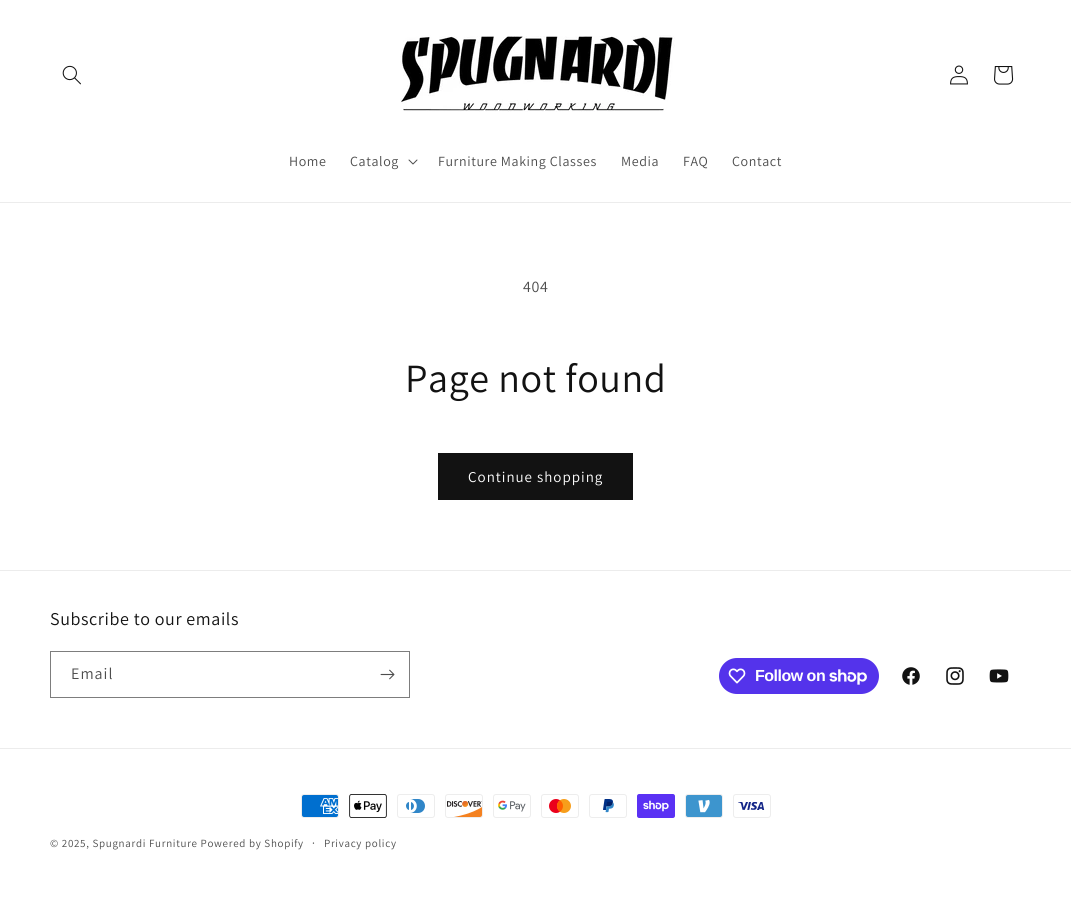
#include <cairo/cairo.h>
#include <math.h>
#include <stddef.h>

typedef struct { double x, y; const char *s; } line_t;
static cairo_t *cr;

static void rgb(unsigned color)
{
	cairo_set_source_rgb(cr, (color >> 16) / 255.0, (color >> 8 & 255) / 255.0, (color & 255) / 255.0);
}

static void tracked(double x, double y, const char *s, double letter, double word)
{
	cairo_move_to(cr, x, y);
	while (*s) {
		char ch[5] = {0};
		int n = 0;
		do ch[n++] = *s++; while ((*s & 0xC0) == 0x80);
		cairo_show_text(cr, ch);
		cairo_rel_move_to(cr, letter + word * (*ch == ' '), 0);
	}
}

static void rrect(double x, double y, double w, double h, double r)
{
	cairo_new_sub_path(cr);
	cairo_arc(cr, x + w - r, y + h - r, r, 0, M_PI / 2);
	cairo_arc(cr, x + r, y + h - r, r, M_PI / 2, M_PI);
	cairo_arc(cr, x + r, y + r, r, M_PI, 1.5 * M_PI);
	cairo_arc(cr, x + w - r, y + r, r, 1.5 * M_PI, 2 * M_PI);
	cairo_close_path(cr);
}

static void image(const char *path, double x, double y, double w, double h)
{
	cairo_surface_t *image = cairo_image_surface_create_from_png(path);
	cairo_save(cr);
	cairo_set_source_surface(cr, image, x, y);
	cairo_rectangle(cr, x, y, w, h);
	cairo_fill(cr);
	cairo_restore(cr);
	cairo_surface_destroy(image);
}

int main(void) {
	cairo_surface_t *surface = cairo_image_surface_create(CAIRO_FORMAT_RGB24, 1071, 910);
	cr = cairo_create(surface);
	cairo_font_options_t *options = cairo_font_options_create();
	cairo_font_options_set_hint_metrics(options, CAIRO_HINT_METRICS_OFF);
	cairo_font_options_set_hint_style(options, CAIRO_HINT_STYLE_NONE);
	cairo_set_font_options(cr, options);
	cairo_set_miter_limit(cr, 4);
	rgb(0xffffff);
	cairo_paint(cr);
	rgb(0xececec);
	cairo_rectangle(cr, 0, 202, 1071, 1);
	cairo_fill(cr);
	image("img/1.png", 62, 65, 19, 20);
	image("img/2.png", 400, 35, 275, 77);
	image("img/3.png", 950, 65, 18, 20);
	image("img/4.png", 994, 66, 20, 19);
	image("img/5.png", 408, 159, 10, 6);
	rgb(0x121212);
	cairo_rectangle(cr, 438, 453, 195, 47);
	cairo_fill(cr);
	rgb(0xececec);
	cairo_rectangle(cr, 0, 570, 1071, 1);
	cairo_fill(cr);
	cairo_rectangle(cr, 50.5, 651.5, 359, 46);
	rgb(0x7d7d7d);
	cairo_set_line_width(cr, 1);
	cairo_stroke(cr);
	image("img/6.png", 380, 669, 15, 11);
	rgb(0x5433eb);
	rrect(719, 658, 160, 36, 18);
	cairo_fill(cr);
	image("img/7.png", 728, 668, 18, 16);
	image("img/8.png", 829, 669, 38, 16);
	image("img/9.png", 902, 667, 18, 18);
	image("img/10.png", 946, 667, 18, 18);
	image("img/11.png", 989, 669, 20, 14);
	rgb(0xececec);
	cairo_rectangle(cr, 0, 748, 1071, 1);
	cairo_fill(cr);
	image("img/12.png", 301, 794, 38, 24);
	image("img/13.png", 349, 794, 38, 24);
	image("img/14.png", 397, 794, 38, 24);
	image("img/15.png", 445, 794, 38, 24);
	image("img/16.png", 493, 794, 38, 24);
	image("img/17.png", 541, 794, 38, 24);
	image("img/18.png", 589, 794, 38, 24);
	image("img/19.png", 637, 794, 38, 24);
	image("img/20.png", 685, 794, 38, 24);
	image("img/21.png", 733, 794, 38, 24);
	cairo_select_font_face(cr, "Assistant", CAIRO_FONT_SLANT_NORMAL, CAIRO_FONT_WEIGHT_NORMAL);
	cairo_set_font_size(cr, 14);
	rgb(0x4d4d4d);
	{
		static const line_t items[] = {
			{289, 166, "Home"},
			{350, 166, "Catalog"},
			{438, 166, "Furniture Making Classes"},
			{621, 166, "Media"},
			{683, 166, "FAQ"},
			{732, 166, "Contact"},
		};
		for (size_t i = 0; i < sizeof items / sizeof *items; i++) {
			tracked(items[i].x, items[i].y, items[i].s, 0.6, 0);
		}
	}
	cairo_set_font_size(cr, 16);
	tracked(523, 292, "404", 0.6, 0);
	cairo_set_font_size(cr, 40);
	rgb(0x121212);
	tracked(405, 392, "Page not found", 0.6, 0);
	cairo_set_font_size(cr, 15);
	rgb(0xffffff);
	tracked(468, 482, "Continue shopping", 1, 0);
	cairo_set_font_size(cr, 18);
	rgb(0x121212);
	tracked(50, 625, "Subscribe to our emails", 0.6, 0);
	cairo_set_font_size(cr, 16);
	rgb(0x4d4d4d);
	tracked(71, 679, "Email", 1, 0);
	cairo_select_font_face(cr, "Liberation Sans", CAIRO_FONT_SLANT_NORMAL, CAIRO_FONT_WEIGHT_BOLD);
	rgb(0xffffff);
	tracked(755, 681, "Follow on", -0.5, 0);
	cairo_select_font_face(cr, "Assistant", CAIRO_FONT_SLANT_NORMAL, CAIRO_FONT_WEIGHT_NORMAL);
	cairo_set_font_size(cr, 11);
	rgb(0x4d4d4d);
	tracked(50, 847, "© 2025, Spugnardi Furniture Powered by Shopify", 0.7, 0);
	cairo_set_font_size(cr, 12);
	tracked(312, 847, "·", 0.7, 0);
	cairo_set_font_size(cr, 11);
	tracked(324, 847, "Privacy policy", 0.7, 0);
	cairo_surface_write_to_png(surface, "page.png");
	cairo_font_options_destroy(options);
	cairo_destroy(cr);
	cairo_surface_destroy(surface);
	return 0;
}
